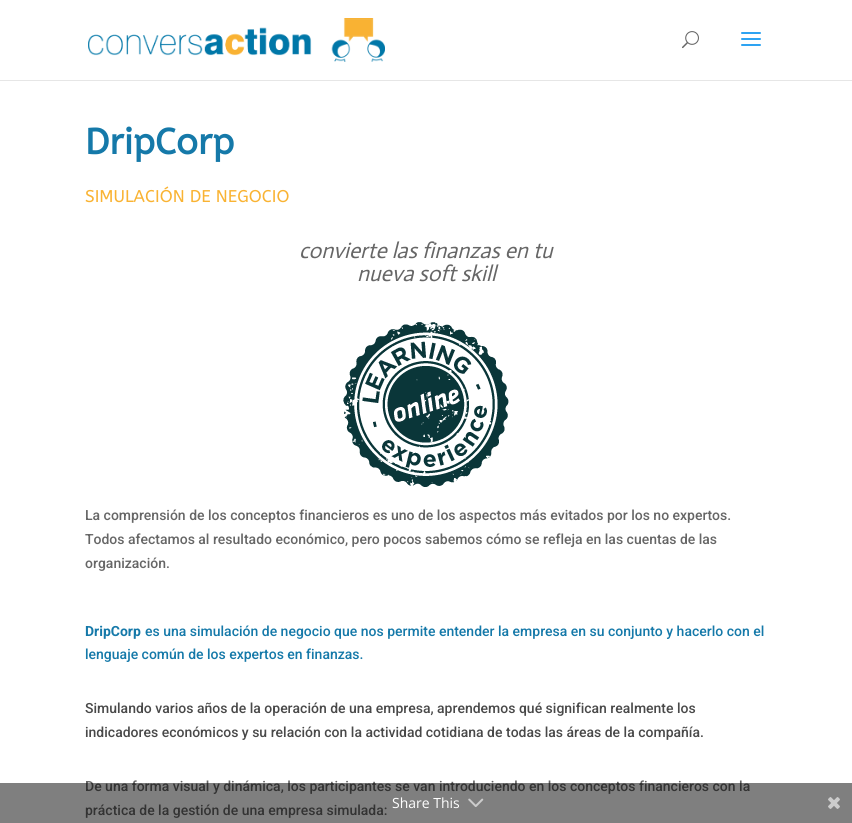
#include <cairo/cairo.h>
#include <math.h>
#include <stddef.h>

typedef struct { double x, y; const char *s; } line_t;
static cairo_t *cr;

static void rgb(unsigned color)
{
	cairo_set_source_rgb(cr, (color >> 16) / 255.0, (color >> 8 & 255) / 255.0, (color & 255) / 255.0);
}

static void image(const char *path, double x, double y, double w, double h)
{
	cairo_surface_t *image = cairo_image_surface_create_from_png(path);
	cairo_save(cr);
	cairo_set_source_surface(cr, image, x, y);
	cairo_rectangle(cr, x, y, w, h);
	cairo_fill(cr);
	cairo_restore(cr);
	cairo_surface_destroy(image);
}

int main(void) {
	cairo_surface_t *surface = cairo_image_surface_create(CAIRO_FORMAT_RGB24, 852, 823);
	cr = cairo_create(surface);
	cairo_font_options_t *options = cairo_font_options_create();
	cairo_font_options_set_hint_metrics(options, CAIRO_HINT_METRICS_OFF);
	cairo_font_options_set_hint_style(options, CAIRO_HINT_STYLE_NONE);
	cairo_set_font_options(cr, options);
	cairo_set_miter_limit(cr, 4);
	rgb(0xffffff);
	cairo_paint(cr);
	rgb(0xe6e6e6);
	cairo_rectangle(cr, 0, 80, 852, 1);
	cairo_fill(cr);
	image("img/1.png", 88, 18, 297, 44);
	image("img/2.png", 682, 31, 17, 18);
	image("img/3.png", 741, 32, 20, 14);
	image("img/4.png", 343, 322, 166, 165);
	cairo_select_font_face(cr, "ABeeZee", CAIRO_FONT_SLANT_NORMAL, CAIRO_FONT_WEIGHT_BOLD);
	cairo_set_font_size(cr, 36);
	rgb(0x1579a9);
	cairo_move_to(cr, 85, 154);
	cairo_show_text(cr, "DripCorp");
	cairo_select_font_face(cr, "ABeeZee", CAIRO_FONT_SLANT_NORMAL, CAIRO_FONT_WEIGHT_NORMAL);
	cairo_set_font_size(cr, 17);
	rgb(0xf9b333);
	cairo_move_to(cr, 85, 202);
	cairo_show_text(cr, "SIMULACIÓN DE NEGOCIO");
	cairo_select_font_face(cr, "Actor", CAIRO_FONT_SLANT_ITALIC, CAIRO_FONT_WEIGHT_NORMAL);
	cairo_set_font_size(cr, 22);
	rgb(0x666666);
	cairo_move_to(cr, 299, 258);
	cairo_show_text(cr, "convierte las finanzas en tu");
	cairo_move_to(cr, 357, 281);
	cairo_show_text(cr, "nueva soft skill");
	cairo_select_font_face(cr, "Roboto Medium", CAIRO_FONT_SLANT_NORMAL, CAIRO_FONT_WEIGHT_NORMAL);
	cairo_set_font_size(cr, 14);
	{
		static const line_t items[] = {
			{85, 520, "La comprensión de los conceptos financieros es uno de los aspectos más evitados por los no expertos."},
			{85, 544, "Todos afectamos al resultado económico, pero pocos sabemos cómo se refleja en las cuentas de las"},
			{85, 568, "organización."},
		};
		for (size_t i = 0; i < sizeof items / sizeof *items; i++) {
			cairo_move_to(cr, items[i].x, items[i].y);
			cairo_show_text(cr, items[i].s);
		}
	}
	cairo_select_font_face(cr, "Roboto", CAIRO_FONT_SLANT_NORMAL, CAIRO_FONT_WEIGHT_BOLD);
	rgb(0x1579a9);
	cairo_move_to(cr, 85, 636);
	cairo_show_text(cr, "DripCorp");
	cairo_select_font_face(cr, "Roboto Medium", CAIRO_FONT_SLANT_NORMAL, CAIRO_FONT_WEIGHT_NORMAL);
	cairo_move_to(cr, 145, 636);
	cairo_show_text(cr, "es una simulación de negocio que nos permite entender la empresa en su conjunto y hacerlo con el");
	cairo_move_to(cr, 85, 659);
	cairo_show_text(cr, "lenguaje común de los expertos en finanzas.");
	rgb(0x494949);
	cairo_move_to(cr, 85, 713);
	cairo_show_text(cr, "Simulando varios años de la operación de una empresa, aprendemos qué significan realmente los");
	cairo_move_to(cr, 85, 737);
	cairo_show_text(cr, "indicadores económicos y su relación con la actividad cotidiana de todas las áreas de la compañía.");
	rgb(0x666666);
	cairo_move_to(cr, 85, 791);
	cairo_show_text(cr, "De una forma visual y dinámica, los participantes se van introduciendo en los conceptos financieros con la");
	cairo_move_to(cr, 85, 815);
	cairo_show_text(cr, "práctica de la gestión de una empresa simulada:");
	cairo_set_source_rgba(cr, 0, 0, 0, 0.5);
	cairo_rectangle(cr, 0, 783, 852, 40);
	cairo_fill(cr);
	cairo_select_font_face(cr, "Open Sans", CAIRO_FONT_SLANT_NORMAL, CAIRO_FONT_WEIGHT_NORMAL);
	rgb(0xffffff);
	cairo_move_to(cr, 392, 808);
	cairo_show_text(cr, "Share This");
	image("img/5.png", 468, 798, 16, 9);
	image("img/6.png", 828, 797, 12, 12);
	cairo_surface_write_to_png(surface, "page.png");
	cairo_font_options_destroy(options);
	cairo_destroy(cr);
	cairo_surface_destroy(surface);
	return 0;
}
